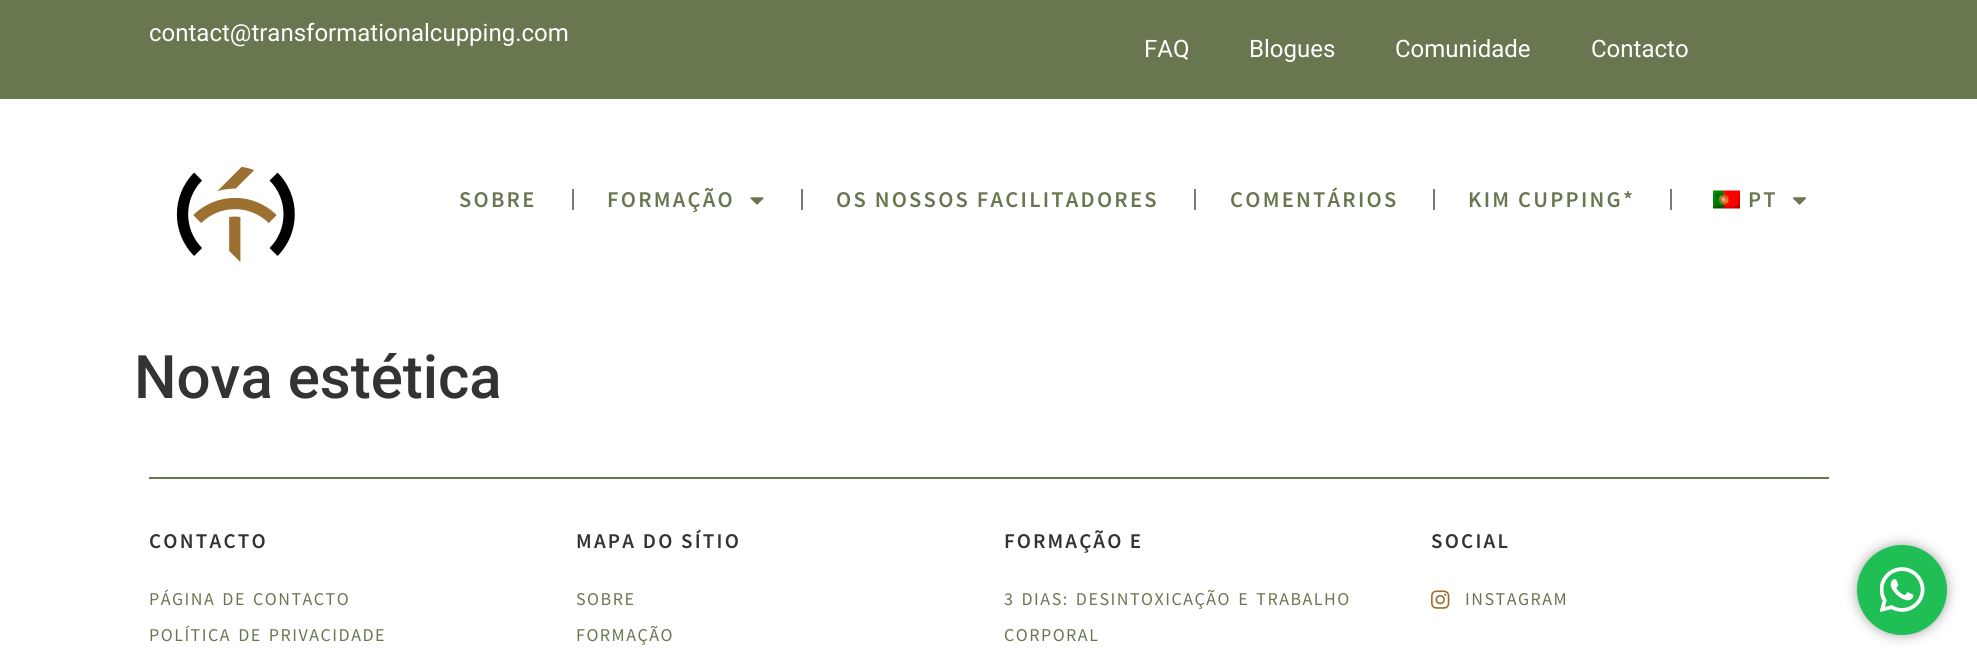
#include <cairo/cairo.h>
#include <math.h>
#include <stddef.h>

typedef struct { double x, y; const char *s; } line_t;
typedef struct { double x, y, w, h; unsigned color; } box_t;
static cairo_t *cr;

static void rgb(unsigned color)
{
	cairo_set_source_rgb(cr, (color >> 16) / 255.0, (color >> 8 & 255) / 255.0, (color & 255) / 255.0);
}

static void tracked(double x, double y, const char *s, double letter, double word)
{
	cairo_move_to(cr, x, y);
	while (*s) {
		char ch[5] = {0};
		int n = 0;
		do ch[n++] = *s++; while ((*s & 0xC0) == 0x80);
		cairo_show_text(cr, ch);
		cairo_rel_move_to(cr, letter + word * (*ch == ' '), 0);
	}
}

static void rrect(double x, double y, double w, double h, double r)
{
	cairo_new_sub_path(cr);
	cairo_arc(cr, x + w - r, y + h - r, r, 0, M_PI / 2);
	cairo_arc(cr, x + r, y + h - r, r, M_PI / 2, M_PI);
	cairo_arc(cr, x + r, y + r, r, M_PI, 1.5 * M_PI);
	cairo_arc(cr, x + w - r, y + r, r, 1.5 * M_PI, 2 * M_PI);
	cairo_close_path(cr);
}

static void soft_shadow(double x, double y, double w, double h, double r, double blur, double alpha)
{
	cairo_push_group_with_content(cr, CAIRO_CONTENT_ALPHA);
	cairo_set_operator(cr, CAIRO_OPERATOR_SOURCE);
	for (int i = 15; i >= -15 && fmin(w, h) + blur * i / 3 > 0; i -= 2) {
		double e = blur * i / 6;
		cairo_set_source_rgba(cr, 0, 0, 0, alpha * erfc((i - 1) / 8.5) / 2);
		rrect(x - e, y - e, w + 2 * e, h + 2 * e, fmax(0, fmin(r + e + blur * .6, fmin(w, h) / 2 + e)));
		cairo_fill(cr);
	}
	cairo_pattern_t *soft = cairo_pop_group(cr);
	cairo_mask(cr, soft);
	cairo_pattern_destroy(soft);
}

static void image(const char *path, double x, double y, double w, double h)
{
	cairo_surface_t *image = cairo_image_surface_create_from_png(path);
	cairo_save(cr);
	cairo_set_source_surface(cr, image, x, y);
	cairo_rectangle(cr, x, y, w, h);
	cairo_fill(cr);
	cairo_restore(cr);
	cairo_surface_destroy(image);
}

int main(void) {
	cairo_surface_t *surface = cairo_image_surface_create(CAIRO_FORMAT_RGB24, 1977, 664);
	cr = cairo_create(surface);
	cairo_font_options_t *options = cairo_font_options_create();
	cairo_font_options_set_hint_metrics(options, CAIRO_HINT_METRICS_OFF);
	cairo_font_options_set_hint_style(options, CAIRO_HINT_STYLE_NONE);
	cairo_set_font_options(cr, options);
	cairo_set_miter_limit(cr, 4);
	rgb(0xffffff);
	cairo_paint(cr);
	rgb(0x687750);
	cairo_rectangle(cr, 0, 0, 1977, 99);
	cairo_fill(cr);
	image("img/1.png", 176, 166, 119, 97);
	rgb(0x797979);
	cairo_rectangle(cr, 572, 189, 2, 21);
	cairo_fill(cr);
	image("img/2.png", 750, 197, 14, 8);
	{
		static const box_t items[] = {
			{801, 189, 2, 21, 0x797979},
			{1194, 189, 2, 21, 0x797979},
			{1433, 189, 2, 21, 0x797979},
			{1670, 189, 2, 21, 0x797979},
		};
		for (size_t i = 0; i < sizeof items / sizeof *items; i++) {
			rgb(items[i].color);
			cairo_rectangle(cr, items[i].x, items[i].y, items[i].w, items[i].h);
			cairo_fill(cr);
		}
	}
	image("img/3.png", 1713, 190, 27, 19);
	image("img/4.png", 1793, 197, 13, 8);
	rgb(0x687750);
	cairo_rectangle(cr, 149, 477, 1680, 2);
	cairo_fill(cr);
	image("img/5.png", 1431, 590, 19, 19);
	rgb(0x000000);
	soft_shadow(1857, 545, 90, 90, 45, 6, 0.35);
	rgb(0x20bf55);
	cairo_arc(cr, 1902, 590, 45, 0, 2 * M_PI);
	cairo_fill(cr);
	image("img/6.png", 1880, 567, 45, 45);
	cairo_select_font_face(cr, "Roboto", CAIRO_FONT_SLANT_NORMAL, CAIRO_FONT_WEIGHT_NORMAL);
	cairo_set_font_size(cr, 24);
	rgb(0xffffff);
	{
		static const line_t items[] = {
			{149, 41, "contact@transformationalcupping.com"},
			{1144, 57, "FAQ"},
			{1249, 57, "Blogues"},
			{1395, 57, "Comunidade"},
			{1591, 57, "Contacto"},
		};
		for (size_t i = 0; i < sizeof items / sizeof *items; i++) {
			cairo_move_to(cr, items[i].x, items[i].y);
			cairo_show_text(cr, items[i].s);
		}
	}
	cairo_select_font_face(cr, "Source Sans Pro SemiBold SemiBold", CAIRO_FONT_SLANT_NORMAL, CAIRO_FONT_WEIGHT_NORMAL);
	cairo_set_font_size(cr, 22.5);
	rgb(0x687750);
	{
		static const line_t items[] = {
			{459, 207, "SOBRE"},
			{607, 207, "FORMAÇÃO"},
			{836, 207, "OS NOSSOS FACILITADORES"},
			{1230, 207, "COMENTÁRIOS"},
			{1468, 207, "KIM CUPPING*"},
			{1748, 207, "PT"},
		};
		for (size_t i = 0; i < sizeof items / sizeof *items; i++) {
			tracked(items[i].x, items[i].y, items[i].s, 2.25, 0);
		}
	}
	cairo_select_font_face(cr, "Roboto Medium", CAIRO_FONT_SLANT_NORMAL, CAIRO_FONT_WEIGHT_NORMAL);
	cairo_set_font_size(cr, 60);
	rgb(0x333333);
	cairo_move_to(cr, 134, 398);
	cairo_show_text(cr, "Nova estética");
	cairo_select_font_face(cr, "Source Sans Pro SemiBold SemiBold", CAIRO_FONT_SLANT_NORMAL, CAIRO_FONT_WEIGHT_NORMAL);
	cairo_set_font_size(cr, 21);
	tracked(149, 548, "CONTACTO", 2.25, 0);
	cairo_select_font_face(cr, "Source Sans Pro", CAIRO_FONT_SLANT_NORMAL, CAIRO_FONT_WEIGHT_NORMAL);
	cairo_set_font_size(cr, 18);
	rgb(0x687750);
	tracked(149, 605, "PÁGINA DE CONTACTO", 1.5, 2);
	tracked(149, 641, "POLÍTICA DE PRIVACIDADE", 1.5, 2);
	cairo_select_font_face(cr, "Source Sans Pro SemiBold SemiBold", CAIRO_FONT_SLANT_NORMAL, CAIRO_FONT_WEIGHT_NORMAL);
	cairo_set_font_size(cr, 21);
	rgb(0x333333);
	tracked(576, 548, "MAPA DO SÍTIO", 2.25, 0);
	cairo_select_font_face(cr, "Source Sans Pro", CAIRO_FONT_SLANT_NORMAL, CAIRO_FONT_WEIGHT_NORMAL);
	cairo_set_font_size(cr, 18);
	rgb(0x687750);
	tracked(576, 605, "SOBRE", 1.5, 0);
	tracked(576, 641, "FORMAÇÃO", 1.5, 0);
	cairo_select_font_face(cr, "Source Sans Pro SemiBold SemiBold", CAIRO_FONT_SLANT_NORMAL, CAIRO_FONT_WEIGHT_NORMAL);
	cairo_set_font_size(cr, 21);
	rgb(0x333333);
	tracked(1004, 548, "FORMAÇÃO E", 2.1, 0);
	cairo_select_font_face(cr, "Source Sans Pro", CAIRO_FONT_SLANT_NORMAL, CAIRO_FONT_WEIGHT_NORMAL);
	cairo_set_font_size(cr, 18);
	rgb(0x687750);
	tracked(1004, 605, "3 DIAS: DESINTOXICAÇÃO E TRABALHO", 1.5, 2);
	tracked(1004, 641, "CORPORAL", 1.5, 0);
	cairo_select_font_face(cr, "Source Sans Pro SemiBold SemiBold", CAIRO_FONT_SLANT_NORMAL, CAIRO_FONT_WEIGHT_NORMAL);
	cairo_set_font_size(cr, 21);
	rgb(0x333333);
	tracked(1431, 548, "SOCIAL", 2.25, 0);
	cairo_select_font_face(cr, "Source Sans Pro", CAIRO_FONT_SLANT_NORMAL, CAIRO_FONT_WEIGHT_NORMAL);
	cairo_set_font_size(cr, 18);
	rgb(0x687750);
	tracked(1465, 605, "INSTAGRAM", 1.5, 0);
	cairo_surface_write_to_png(surface, "page.png");
	cairo_font_options_destroy(options);
	cairo_destroy(cr);
	cairo_surface_destroy(surface);
	return 0;
}
